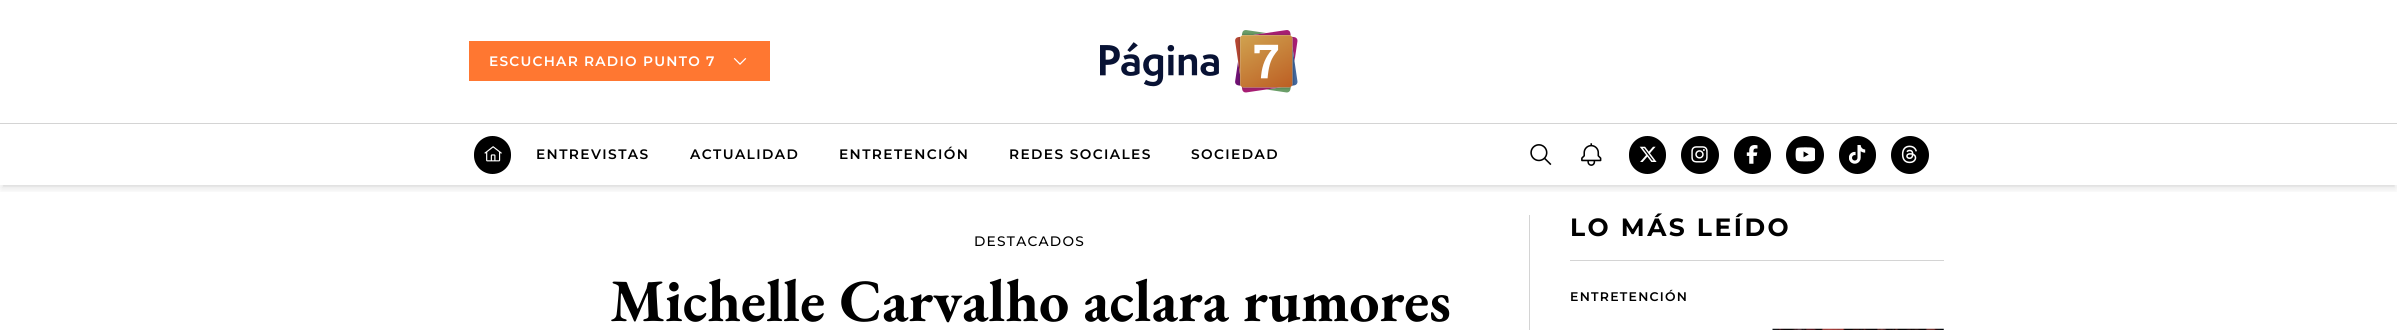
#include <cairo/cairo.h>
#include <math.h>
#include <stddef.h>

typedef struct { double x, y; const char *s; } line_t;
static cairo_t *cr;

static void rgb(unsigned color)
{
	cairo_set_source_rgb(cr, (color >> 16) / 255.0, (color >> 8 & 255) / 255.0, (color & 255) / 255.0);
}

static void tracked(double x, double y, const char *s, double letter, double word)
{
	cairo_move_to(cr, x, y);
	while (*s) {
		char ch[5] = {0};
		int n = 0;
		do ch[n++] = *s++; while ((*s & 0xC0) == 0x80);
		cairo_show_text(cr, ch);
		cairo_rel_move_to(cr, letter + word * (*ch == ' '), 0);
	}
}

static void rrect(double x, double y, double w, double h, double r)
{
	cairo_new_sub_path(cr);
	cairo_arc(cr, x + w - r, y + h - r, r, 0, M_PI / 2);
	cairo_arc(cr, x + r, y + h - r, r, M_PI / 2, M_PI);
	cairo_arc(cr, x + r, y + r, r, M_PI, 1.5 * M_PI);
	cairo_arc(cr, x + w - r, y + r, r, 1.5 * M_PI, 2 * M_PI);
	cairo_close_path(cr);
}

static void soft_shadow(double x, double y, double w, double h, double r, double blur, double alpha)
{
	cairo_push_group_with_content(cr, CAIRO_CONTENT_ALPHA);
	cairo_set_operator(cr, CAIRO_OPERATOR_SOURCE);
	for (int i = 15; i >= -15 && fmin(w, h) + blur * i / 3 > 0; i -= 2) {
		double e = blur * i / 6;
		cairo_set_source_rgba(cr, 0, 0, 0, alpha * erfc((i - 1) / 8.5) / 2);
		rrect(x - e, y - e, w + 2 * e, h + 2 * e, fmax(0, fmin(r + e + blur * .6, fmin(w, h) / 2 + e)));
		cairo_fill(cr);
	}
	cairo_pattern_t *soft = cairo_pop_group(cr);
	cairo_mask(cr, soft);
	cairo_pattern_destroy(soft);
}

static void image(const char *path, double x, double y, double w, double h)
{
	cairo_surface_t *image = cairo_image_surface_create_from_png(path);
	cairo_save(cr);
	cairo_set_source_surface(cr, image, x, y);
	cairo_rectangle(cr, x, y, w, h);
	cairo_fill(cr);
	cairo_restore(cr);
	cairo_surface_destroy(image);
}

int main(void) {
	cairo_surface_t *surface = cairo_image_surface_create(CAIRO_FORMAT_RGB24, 2397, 330);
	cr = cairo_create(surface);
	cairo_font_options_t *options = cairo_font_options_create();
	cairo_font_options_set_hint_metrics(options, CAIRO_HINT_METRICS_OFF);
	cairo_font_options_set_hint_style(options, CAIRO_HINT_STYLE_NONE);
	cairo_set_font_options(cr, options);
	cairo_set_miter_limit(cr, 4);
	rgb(0xffffff);
	cairo_paint(cr);
	cairo_save(cr);
	cairo_rectangle(cr, 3, 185, 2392, 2);
	cairo_clip(cr);
	rgb(0x000000);
	soft_shadow(3, 5, 2392, 180, 0, 2.5, 0.1);
	cairo_restore(cr);
	cairo_save(cr);
	cairo_rectangle(cr, 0, 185, 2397, 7);
	cairo_clip(cr);
	rgb(0x000000);
	soft_shadow(1, 6, 2395, 183, 0, 4, 0.1);
	cairo_restore(cr);
	rgb(0xff7731);
	cairo_rectangle(cr, 469, 41, 301, 40);
	cairo_fill(cr);
	image("img/1.png", 733, 58, 14, 7);
	image("img/2.png", 1100, 30, 198, 63);
	rgb(0xd4d4d4);
	cairo_rectangle(cr, 0, 123, 2397, 1);
	cairo_fill(cr);
	rgb(0x000000);
	rrect(474, 136, 37, 38, 18.5);
	cairo_fill(cr);
	image("img/3.png", 484, 146, 18, 16);
	image("img/4.png", 1530, 144, 22, 22);
	image("img/5.png", 1581, 143, 21, 23);
	rrect(1629, 136, 37, 38, 18.5);
	cairo_fill(cr);
	image("img/6.png", 1639, 146, 18, 16);
	cairo_arc(cr, 1700, 155, 19, 0, 2 * M_PI);
	cairo_fill(cr);
	image("img/7.png", 1691, 146, 17, 17);
	rrect(1734, 136, 37, 38, 18.5);
	cairo_fill(cr);
	image("img/8.png", 1746, 145, 12, 19);
	cairo_arc(cr, 1805, 155, 19, 0, 2 * M_PI);
	cairo_fill(cr);
	image("img/9.png", 1795, 147, 20, 15);
	rrect(1839, 136, 37, 38, 18.5);
	cairo_fill(cr);
	image("img/10.png", 1849, 145, 17, 19);
	cairo_arc(cr, 1910, 155, 19, 0, 2 * M_PI);
	cairo_fill(cr);
	image("img/11.png", 1901, 145, 16, 19);
	rgb(0xd4d4d4);
	cairo_rectangle(cr, 1529, 215, 1, 115);
	cairo_fill(cr);
	cairo_rectangle(cr, 1570, 260, 374, 1);
	cairo_fill(cr);
	image("img/12.png", 1772, 328, 172, 2);
	cairo_select_font_face(cr, "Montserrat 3 Thin", CAIRO_FONT_SLANT_NORMAL, CAIRO_FONT_WEIGHT_NORMAL);
	cairo_set_font_size(cr, 13.75);
	rgb(0xffffff);
	tracked(489, 66, "ESCUCHAR RADIO PUNTO 7", 1.25, 0);
	rgb(0x000000);
	{
		static const line_t items[] = {
			{536, 159, "ENTREVISTAS"},
			{690, 159, "ACTUALIDAD"},
			{839, 159, "ENTRETENCIÓN"},
			{1009, 159, "REDES SOCIALES"},
			{1191, 159, "SOCIEDAD"},
		};
		for (size_t i = 0; i < sizeof items / sizeof *items; i++) {
			tracked(items[i].x, items[i].y, items[i].s, 1.4, 0);
		}
	}
	cairo_select_font_face(cr, "Montserrat Thin", CAIRO_FONT_SLANT_NORMAL, CAIRO_FONT_WEIGHT_NORMAL);
	tracked(974, 246, "DESTACADOS", 1.25, 0);
	cairo_select_font_face(cr, "EB Garamond", CAIRO_FONT_SLANT_NORMAL, CAIRO_FONT_WEIGHT_BOLD);
	cairo_set_font_size(cr, 60);
	cairo_move_to(cr, 610, 321);
	cairo_show_text(cr, "Michelle Carvalho aclara rumores");
	cairo_select_font_face(cr, "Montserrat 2 Thin", CAIRO_FONT_SLANT_NORMAL, CAIRO_FONT_WEIGHT_NORMAL);
	cairo_set_font_size(cr, 25);
	tracked(1570, 236, "LO MÁS LEÍDO", 2.5, 0);
	cairo_select_font_face(cr, "Montserrat 3 Thin", CAIRO_FONT_SLANT_NORMAL, CAIRO_FONT_WEIGHT_NORMAL);
	cairo_set_font_size(cr, 12.5);
	tracked(1570, 301, "ENTRETENCIÓN", 1.25, 0);
	cairo_surface_write_to_png(surface, "page.png");
	cairo_font_options_destroy(options);
	cairo_destroy(cr);
	cairo_surface_destroy(surface);
	return 0;
}
